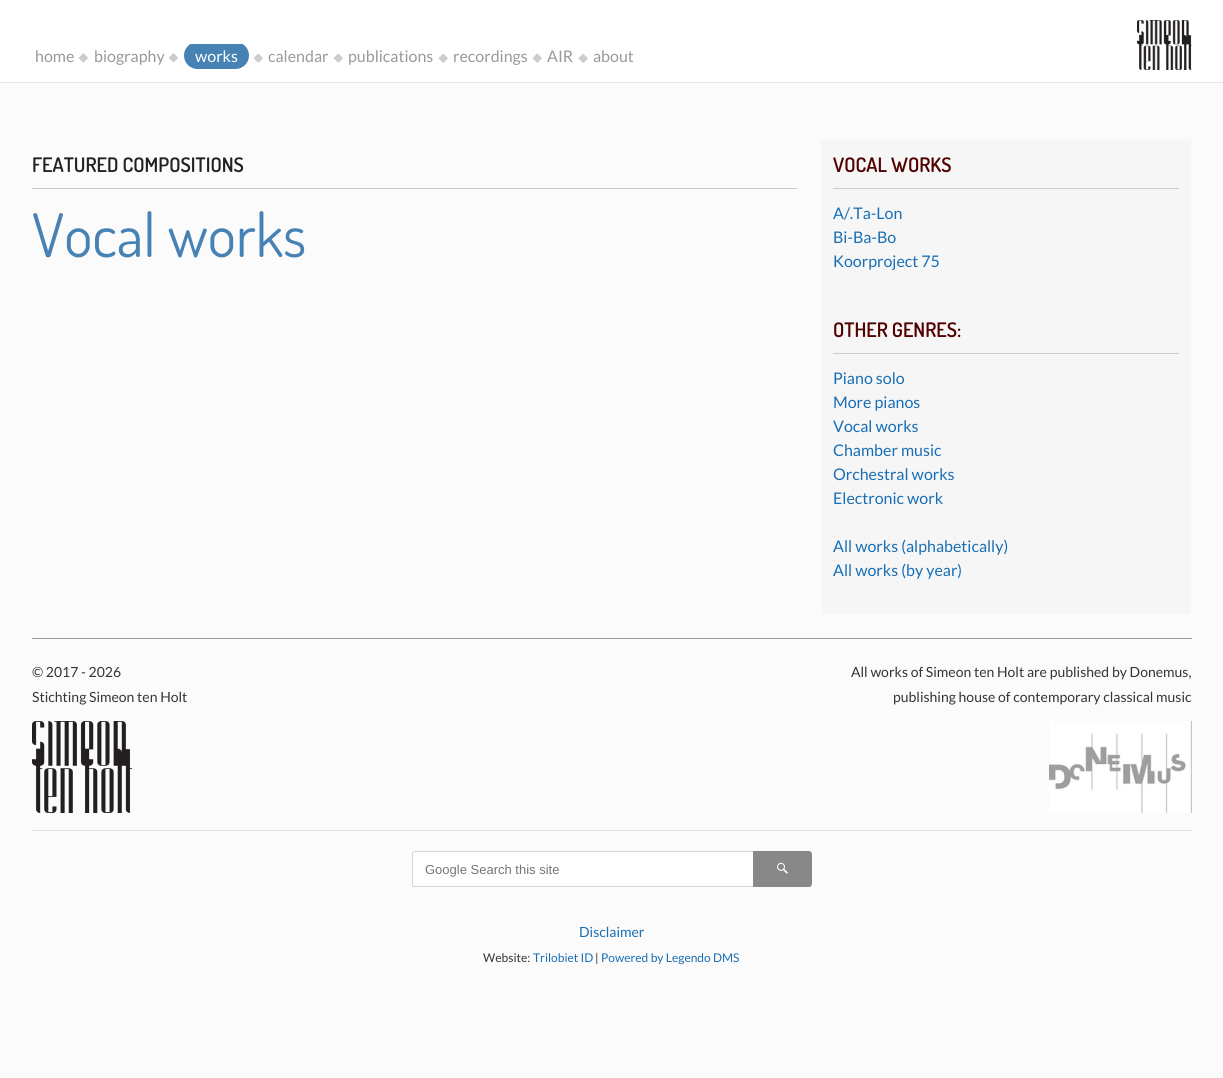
#include <cairo/cairo.h>
#include <math.h>
#include <stddef.h>

typedef struct { double x, y; const char *s; } line_t;
typedef struct { double x, y, w, h; unsigned color; } box_t;
static cairo_t *cr;

static void rgb(unsigned color)
{
	cairo_set_source_rgb(cr, (color >> 16) / 255.0, (color >> 8 & 255) / 255.0, (color & 255) / 255.0);
}

static void rrect(double x, double y, double w, double h, double r)
{
	cairo_new_sub_path(cr);
	cairo_arc(cr, x + w - r, y + h - r, r, 0, M_PI / 2);
	cairo_arc(cr, x + r, y + h - r, r, M_PI / 2, M_PI);
	cairo_arc(cr, x + r, y + r, r, M_PI, 1.5 * M_PI);
	cairo_arc(cr, x + w - r, y + r, r, 1.5 * M_PI, 2 * M_PI);
	cairo_close_path(cr);
}

static void image(const char *path, double x, double y, double w, double h)
{
	cairo_surface_t *image = cairo_image_surface_create_from_png(path);
	cairo_save(cr);
	cairo_set_source_surface(cr, image, x, y);
	cairo_rectangle(cr, x, y, w, h);
	cairo_fill(cr);
	cairo_restore(cr);
	cairo_surface_destroy(image);
}

int main(void) {
	cairo_surface_t *surface = cairo_image_surface_create(CAIRO_FORMAT_RGB24, 1223, 1078);
	cr = cairo_create(surface);
	cairo_font_options_t *options = cairo_font_options_create();
	cairo_font_options_set_hint_metrics(options, CAIRO_HINT_METRICS_OFF);
	cairo_font_options_set_hint_style(options, CAIRO_HINT_STYLE_NONE);
	cairo_set_font_options(cr, options);
	cairo_set_miter_limit(cr, 4);
	rgb(0xfbfbfb);
	cairo_paint(cr);
	rgb(0xffffff);
	cairo_rectangle(cr, 0, 0, 1223, 82);
	cairo_fill(cr);
	rgb(0xe5e5e5);
	cairo_rectangle(cr, 0, 82, 1223, 1);
	cairo_fill(cr);
	image("img/1.png", 78, 53, 10, 10);
	image("img/2.png", 168, 53, 10, 10);
	cairo_save(cr);
	cairo_rectangle(cr, 32, 44, 1105, 26);
	cairo_clip(cr);
	rgb(0x4682b4);
	rrect(184, 42, 65, 27, 13.5);
	cairo_fill(cr);
	cairo_restore(cr);
	image("img/3.png", 253, 53, 10, 10);
	image("img/3.png", 333, 53, 10, 10);
	image("img/4.png", 438, 53, 10, 10);
	image("img/5.png", 532, 53, 10, 10);
	image("img/6.png", 578, 53, 10, 10);
	image("img/7.png", 1137, 20, 55, 50);
	{
		static const box_t items[] = {
			{32, 188, 765, 1, 0xcccccc},
			{821, 140, 370, 474, 0xf6f6f6},
			{833, 188, 346, 1, 0xcccccc},
			{833, 353, 346, 1, 0xcccccc},
			{32, 638, 1160, 1, 0x999999},
		};
		for (size_t i = 0; i < sizeof items / sizeof *items; i++) {
			rgb(items[i].color);
			cairo_rectangle(cr, items[i].x, items[i].y, items[i].w, items[i].h);
			cairo_fill(cr);
		}
	}
	image("img/8.png", 32, 721, 100, 92);
	image("img/9.png", 1049, 721, 143, 92);
	rgb(0xe2e2e2);
	cairo_rectangle(cr, 32, 830, 1160, 1);
	cairo_fill(cr);
	rgb(0xffffff);
	cairo_new_path(cr);
	cairo_move_to(cr, 415, 851.5);
	cairo_line_to(cr, 753.5, 851.5);
	cairo_line_to(cr, 753.5, 886.5);
	cairo_line_to(cr, 415, 886.5);
	cairo_curve_to(cr, 413.5, 886.5, 412.5, 885.5, 412.5, 884);
	cairo_line_to(cr, 412.5, 854);
	cairo_curve_to(cr, 412.5, 852.5, 413.5, 851.5, 415, 851.5);
	cairo_close_path(cr);
	cairo_fill_preserve(cr);
	rgb(0xd4d4d4);
	cairo_set_line_width(cr, 1);
	cairo_stroke(cr);
	rgb(0x888888);
	cairo_new_path(cr);
	cairo_move_to(cr, 753, 851);
	cairo_line_to(cr, 809, 851);
	cairo_curve_to(cr, 810.5, 851, 812, 852.5, 812, 854);
	cairo_line_to(cr, 812, 884);
	cairo_curve_to(cr, 812, 885.5, 810.5, 887, 809, 887);
	cairo_line_to(cr, 753, 887);
	cairo_close_path(cr);
	cairo_fill(cr);
	image("img/10.png", 777, 862, 11, 12);
	cairo_select_font_face(cr, "Lato", CAIRO_FONT_SLANT_NORMAL, CAIRO_FONT_WEIGHT_NORMAL);
	cairo_set_font_size(cr, 16);
	rgb(0x999999);
	cairo_move_to(cr, 35, 62);
	cairo_show_text(cr, "home");
	cairo_move_to(cr, 94, 62);
	cairo_show_text(cr, "biography");
	rgb(0xffffff);
	cairo_move_to(cr, 195, 62);
	cairo_show_text(cr, "works");
	rgb(0x999999);
	{
		static const line_t items[] = {
			{268, 62, "calendar"},
			{348, 62, "publications"},
			{453, 62, "recordings"},
			{547, 62, "AIR"},
			{593, 62, "about"},
		};
		for (size_t i = 0; i < sizeof items / sizeof *items; i++) {
			cairo_move_to(cr, items[i].x, items[i].y);
			cairo_show_text(cr, items[i].s);
		}
	}
	cairo_select_font_face(cr, "Dosis SemiBold", CAIRO_FONT_SLANT_NORMAL, CAIRO_FONT_WEIGHT_NORMAL);
	cairo_set_font_size(cr, 20);
	rgb(0x222222);
	cairo_move_to(cr, 32, 172);
	cairo_show_text(cr, "FEATURED COMPOSITIONS");
	cairo_select_font_face(cr, "Dosis", CAIRO_FONT_SLANT_NORMAL, CAIRO_FONT_WEIGHT_NORMAL);
	cairo_set_font_size(cr, 60);
	rgb(0x4682b4);
	cairo_move_to(cr, 32, 257);
	cairo_show_text(cr, "Vocal works");
	cairo_select_font_face(cr, "Dosis SemiBold", CAIRO_FONT_SLANT_NORMAL, CAIRO_FONT_WEIGHT_NORMAL);
	cairo_set_font_size(cr, 20);
	rgb(0x520101);
	cairo_move_to(cr, 833, 172);
	cairo_show_text(cr, "VOCAL WORKS");
	cairo_select_font_face(cr, "Lato", CAIRO_FONT_SLANT_NORMAL, CAIRO_FONT_WEIGHT_NORMAL);
	cairo_set_font_size(cr, 16);
	rgb(0x186eb4);
	{
		static const line_t items[] = {
			{833, 219, "A/.Ta-Lon"},
			{833, 243, "Bi-Ba-Bo"},
			{833, 267, "Koorproject 75"},
		};
		for (size_t i = 0; i < sizeof items / sizeof *items; i++) {
			cairo_move_to(cr, items[i].x, items[i].y);
			cairo_show_text(cr, items[i].s);
		}
	}
	cairo_select_font_face(cr, "Dosis SemiBold", CAIRO_FONT_SLANT_NORMAL, CAIRO_FONT_WEIGHT_NORMAL);
	cairo_set_font_size(cr, 20);
	rgb(0x520101);
	cairo_move_to(cr, 833, 337);
	cairo_show_text(cr, "OTHER GENRES:");
	cairo_select_font_face(cr, "Lato", CAIRO_FONT_SLANT_NORMAL, CAIRO_FONT_WEIGHT_NORMAL);
	cairo_set_font_size(cr, 16);
	rgb(0x186eb4);
	{
		static const line_t items[] = {
			{833, 384, "Piano solo"},
			{833, 408, "More pianos"},
			{833, 432, "Vocal works"},
			{833, 456, "Chamber music"},
			{833, 480, "Orchestral works"},
			{833, 504, "Electronic work"},
			{833, 552, "All works (alphabetically)"},
			{833, 576, "All works (by year)"},
		};
		for (size_t i = 0; i < sizeof items / sizeof *items; i++) {
			cairo_move_to(cr, items[i].x, items[i].y);
			cairo_show_text(cr, items[i].s);
		}
	}
	cairo_set_font_size(cr, 14);
	rgb(0x313439);
	{
		static const line_t items[] = {
			{32, 677, "© 2017 - 2026"},
			{32, 702, "Stichting Simeon ten Holt"},
			{851, 677, "All works of Simeon ten Holt are published by Donemus,"},
			{893, 702, "publishing house of contemporary classical music"},
		};
		for (size_t i = 0; i < sizeof items / sizeof *items; i++) {
			cairo_move_to(cr, items[i].x, items[i].y);
			cairo_show_text(cr, items[i].s);
		}
	}
	cairo_select_font_face(cr, "Liberation Sans", CAIRO_FONT_SLANT_NORMAL, CAIRO_FONT_WEIGHT_NORMAL);
	cairo_set_font_size(cr, 13);
	rgb(0x757575);
	cairo_move_to(cr, 425, 874);
	cairo_show_text(cr, "Google Search this site");
	cairo_select_font_face(cr, "Lato", CAIRO_FONT_SLANT_NORMAL, CAIRO_FONT_WEIGHT_NORMAL);
	cairo_set_font_size(cr, 14);
	rgb(0x186eb4);
	cairo_move_to(cr, 579, 937);
	cairo_show_text(cr, "Disclaimer");
	cairo_set_font_size(cr, 12);
	rgb(0x313439);
	cairo_move_to(cr, 483, 962);
	cairo_show_text(cr, "Website:");
	rgb(0x186eb4);
	cairo_move_to(cr, 533, 962);
	cairo_show_text(cr, "Trilobiet ID");
	rgb(0x313439);
	cairo_move_to(cr, 595, 962);
	cairo_show_text(cr, "|");
	rgb(0x186eb4);
	cairo_move_to(cr, 601, 962);
	cairo_show_text(cr, "Powered by Legendo DMS");
	cairo_surface_write_to_png(surface, "page.png");
	cairo_font_options_destroy(options);
	cairo_destroy(cr);
	cairo_surface_destroy(surface);
	return 0;
}
